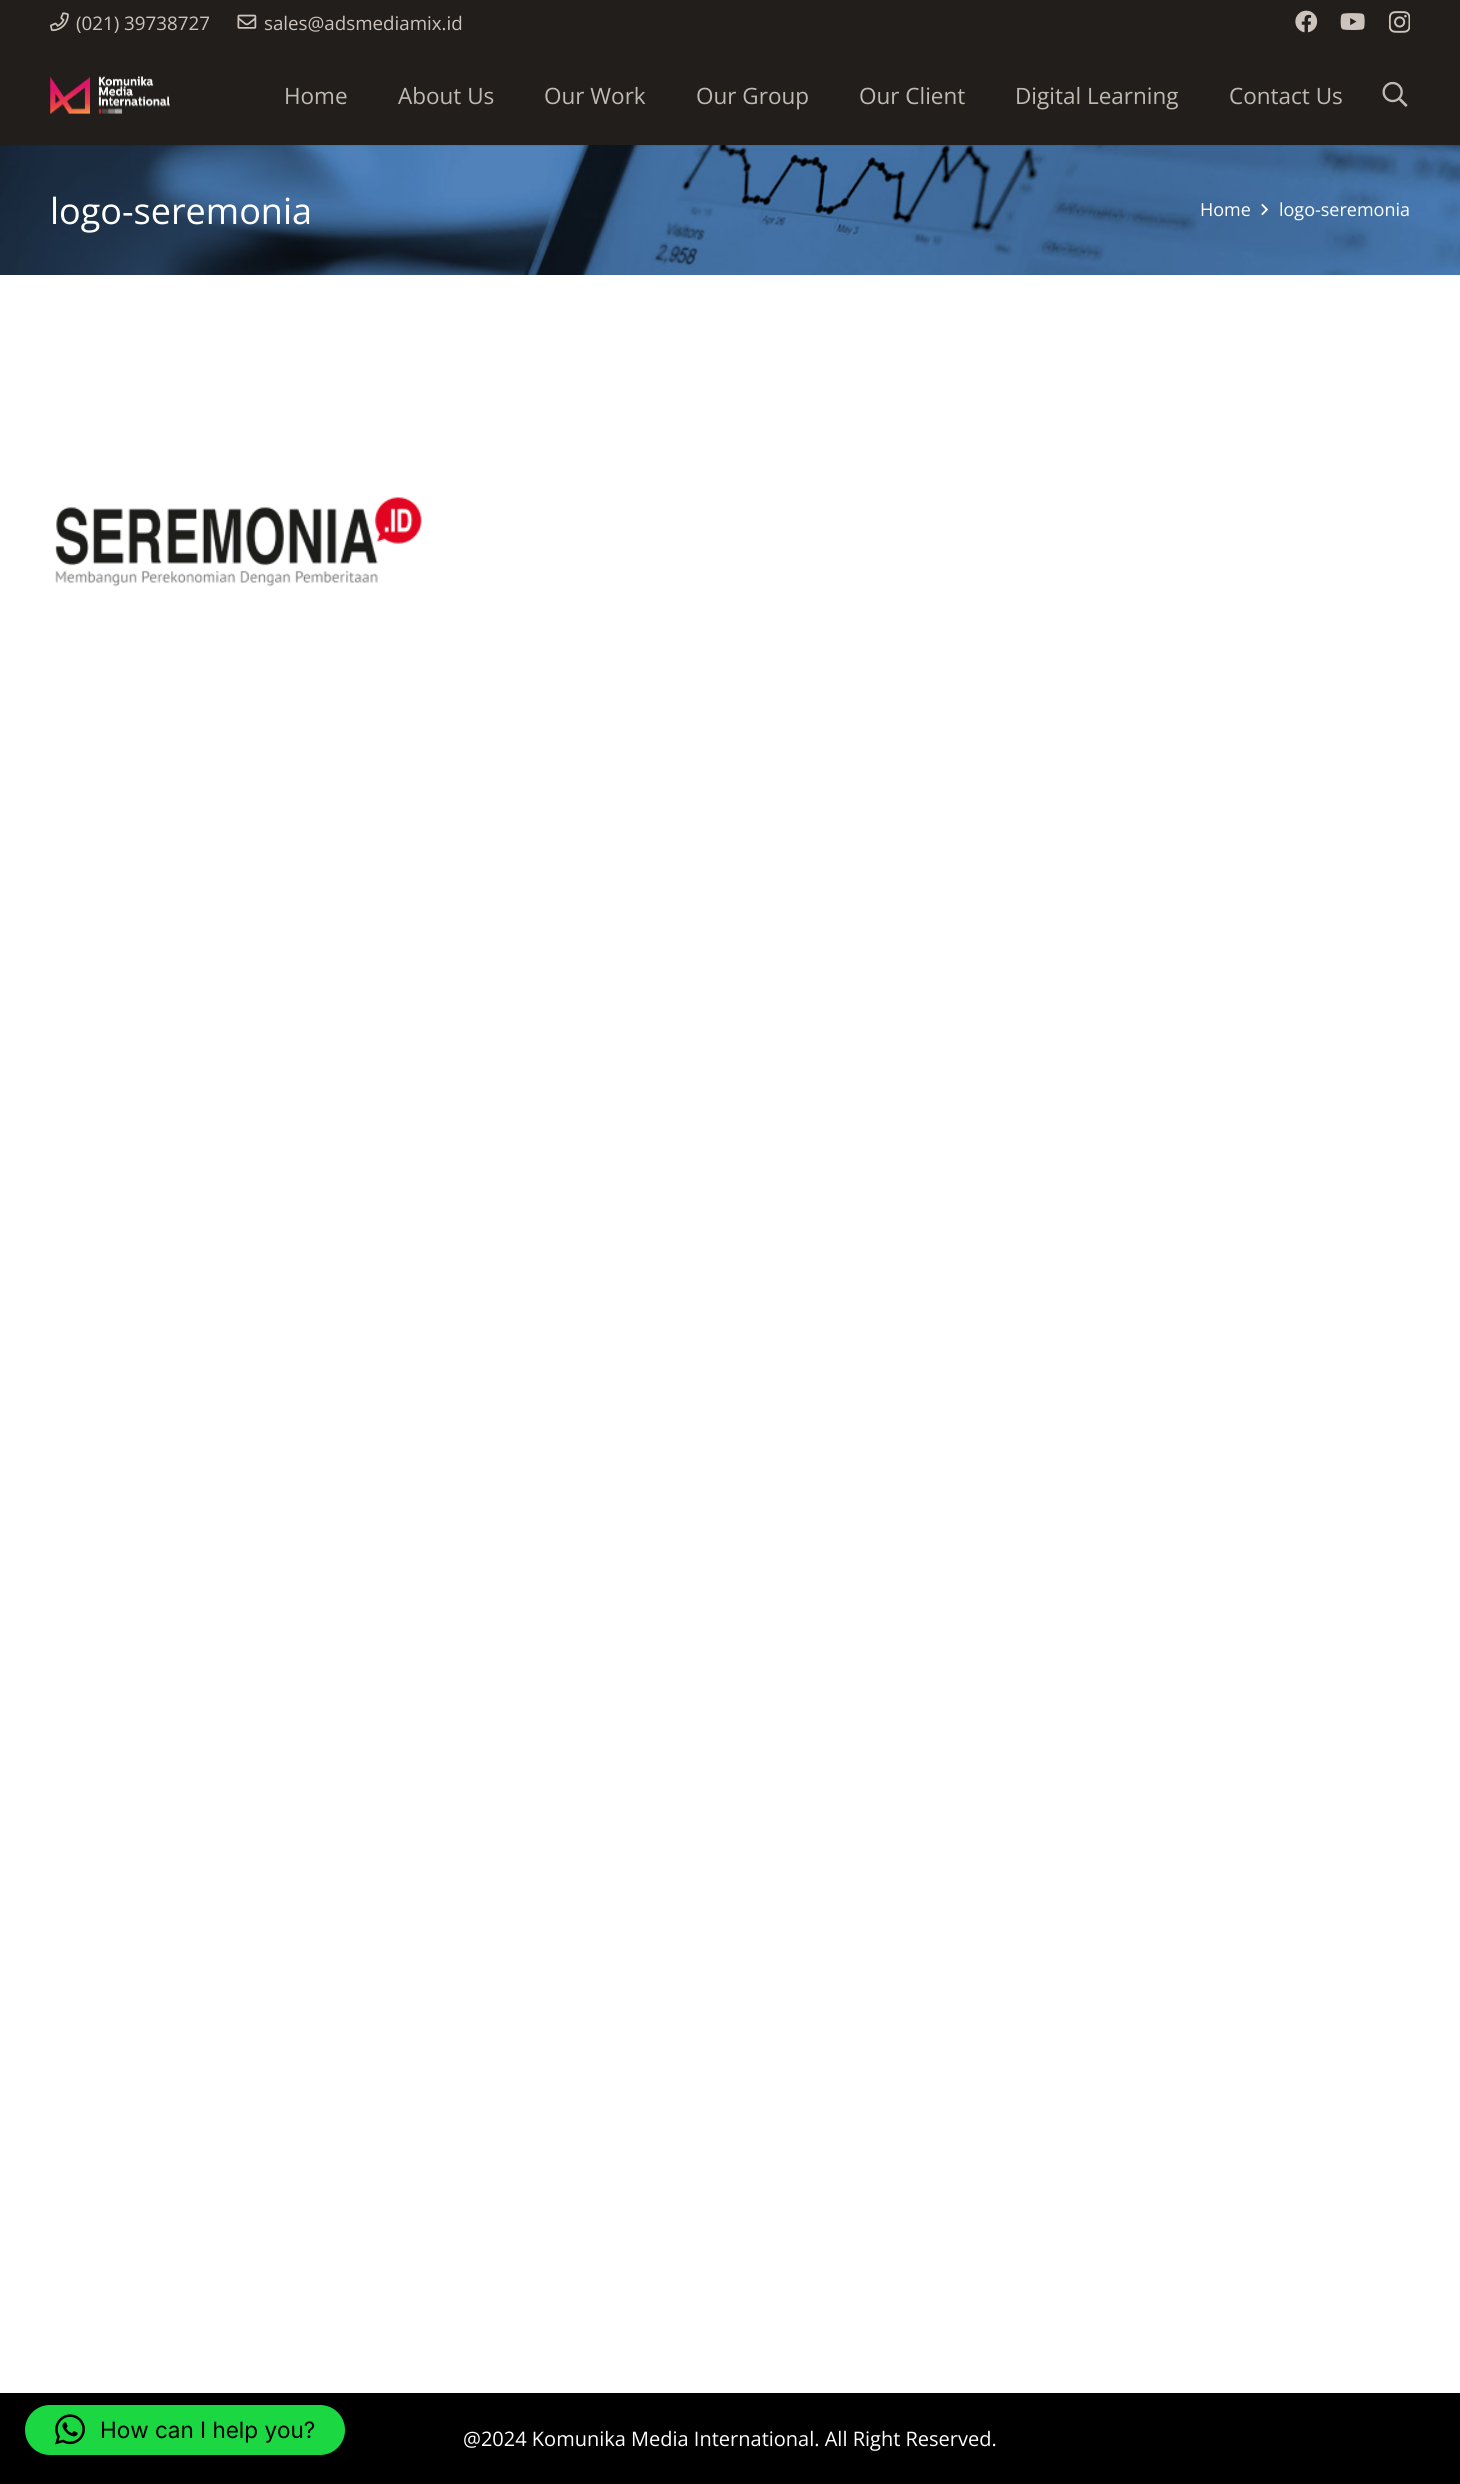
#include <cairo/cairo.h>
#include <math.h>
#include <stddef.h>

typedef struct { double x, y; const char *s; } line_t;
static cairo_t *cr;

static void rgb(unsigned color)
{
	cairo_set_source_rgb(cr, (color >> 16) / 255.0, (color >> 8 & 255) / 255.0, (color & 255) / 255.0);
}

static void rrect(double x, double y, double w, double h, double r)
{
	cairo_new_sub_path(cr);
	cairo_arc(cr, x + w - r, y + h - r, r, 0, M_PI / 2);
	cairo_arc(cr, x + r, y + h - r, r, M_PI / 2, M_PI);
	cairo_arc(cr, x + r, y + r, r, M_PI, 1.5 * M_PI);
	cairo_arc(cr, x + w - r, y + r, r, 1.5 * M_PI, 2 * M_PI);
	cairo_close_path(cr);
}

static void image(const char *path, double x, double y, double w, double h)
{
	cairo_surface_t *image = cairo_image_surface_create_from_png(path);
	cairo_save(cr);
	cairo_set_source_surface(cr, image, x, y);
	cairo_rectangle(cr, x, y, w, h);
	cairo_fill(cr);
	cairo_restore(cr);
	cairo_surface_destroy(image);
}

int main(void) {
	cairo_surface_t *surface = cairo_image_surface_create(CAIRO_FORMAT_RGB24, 1460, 2484);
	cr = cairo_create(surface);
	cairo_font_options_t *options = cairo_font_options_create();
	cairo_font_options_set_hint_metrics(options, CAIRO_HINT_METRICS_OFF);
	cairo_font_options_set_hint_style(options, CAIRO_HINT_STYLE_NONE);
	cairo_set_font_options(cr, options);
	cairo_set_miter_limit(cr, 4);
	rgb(0xffffff);
	cairo_paint(cr);
	rgb(0x211e1b);
	cairo_rectangle(cr, 0, 0, 1460, 145);
	cairo_fill(cr);
	image("img/1.png", 50, 12, 19, 20);
	image("img/2.png", 237, 14, 20, 15);
	image("img/3.png", 1295, 10, 23, 23);
	image("img/4.png", 1340, 13, 25, 17);
	image("img/5.png", 1389, 11, 21, 22);
	image("img/8.png", 0, 145, 1460, 130);
	cairo_set_source_rgba(cr, 0, 0, 0, 0.08);
	cairo_rectangle(cr, 0, 145, 1460, 1);
	cairo_fill(cr);
	image("img/6.png", 50, 76, 120, 38);
	image("img/7.png", 1382, 81, 26, 26);
	image("img/9.png", 1261, 203, 7, 13);
	image("img/10.png", 55, 497, 367, 90);
	rgb(0x000000);
	cairo_rectangle(cr, 0, 2393, 1460, 91);
	cairo_fill(cr);
	rgb(0x1bd741);
	rrect(25, 2405, 320, 50, 25);
	cairo_fill(cr);
	image("img/11.png", 55, 2414, 30, 31);
	cairo_select_font_face(cr, "Open Sans", CAIRO_FONT_SLANT_NORMAL, CAIRO_FONT_WEIGHT_NORMAL);
	cairo_set_font_size(cr, 18.75);
	rgb(0xccc4bc);
	cairo_move_to(cr, 76, 30);
	cairo_show_text(cr, "(021) 39738727");
	cairo_move_to(cr, 264, 30);
	cairo_show_text(cr, "sales@adsmediamix.id");
	cairo_set_font_size(cr, 22.5);
	rgb(0xbfb9b2);
	{
		static const line_t items[] = {
			{284, 104, "Home"},
			{398, 104, "About Us"},
			{544, 104, "Our Work"},
			{696, 104, "Our Group"},
			{859, 104, "Our Client"},
			{1015, 104, "Digital Learning"},
			{1229, 104, "Contact Us"},
		};
		for (size_t i = 0; i < sizeof items / sizeof *items; i++) {
			cairo_move_to(cr, items[i].x, items[i].y);
			cairo_show_text(cr, items[i].s);
		}
	}
	cairo_set_font_size(cr, 36);
	rgb(0xffffff);
	cairo_move_to(cr, 50, 224);
	cairo_show_text(cr, "logo-seremonia");
	cairo_set_font_size(cr, 18);
	cairo_move_to(cr, 1200, 216);
	cairo_show_text(cr, "Home");
	cairo_move_to(cr, 1279, 216);
	cairo_show_text(cr, "logo-seremonia");
	cairo_select_font_face(cr, "Inter", CAIRO_FONT_SLANT_NORMAL, CAIRO_FONT_WEIGHT_NORMAL);
	cairo_set_font_size(cr, 22.5);
	rgb(0x000000);
	cairo_move_to(cr, 100, 2438);
	cairo_show_text(cr, "How can I help you?");
	cairo_select_font_face(cr, "Open Sans", CAIRO_FONT_SLANT_NORMAL, CAIRO_FONT_WEIGHT_NORMAL);
	cairo_set_font_size(cr, 20);
	rgb(0xffffff);
	cairo_move_to(cr, 463, 2446);
	cairo_show_text(cr, "@2024 Komunika Media International. All Right Reserved.");
	cairo_surface_write_to_png(surface, "page.png");
	cairo_font_options_destroy(options);
	cairo_destroy(cr);
	cairo_surface_destroy(surface);
	return 0;
}
